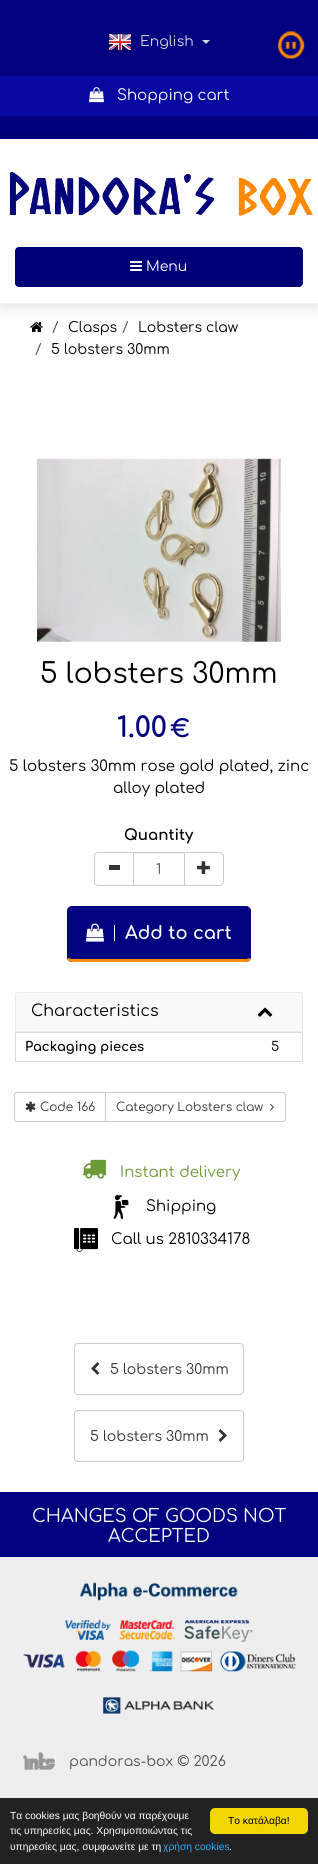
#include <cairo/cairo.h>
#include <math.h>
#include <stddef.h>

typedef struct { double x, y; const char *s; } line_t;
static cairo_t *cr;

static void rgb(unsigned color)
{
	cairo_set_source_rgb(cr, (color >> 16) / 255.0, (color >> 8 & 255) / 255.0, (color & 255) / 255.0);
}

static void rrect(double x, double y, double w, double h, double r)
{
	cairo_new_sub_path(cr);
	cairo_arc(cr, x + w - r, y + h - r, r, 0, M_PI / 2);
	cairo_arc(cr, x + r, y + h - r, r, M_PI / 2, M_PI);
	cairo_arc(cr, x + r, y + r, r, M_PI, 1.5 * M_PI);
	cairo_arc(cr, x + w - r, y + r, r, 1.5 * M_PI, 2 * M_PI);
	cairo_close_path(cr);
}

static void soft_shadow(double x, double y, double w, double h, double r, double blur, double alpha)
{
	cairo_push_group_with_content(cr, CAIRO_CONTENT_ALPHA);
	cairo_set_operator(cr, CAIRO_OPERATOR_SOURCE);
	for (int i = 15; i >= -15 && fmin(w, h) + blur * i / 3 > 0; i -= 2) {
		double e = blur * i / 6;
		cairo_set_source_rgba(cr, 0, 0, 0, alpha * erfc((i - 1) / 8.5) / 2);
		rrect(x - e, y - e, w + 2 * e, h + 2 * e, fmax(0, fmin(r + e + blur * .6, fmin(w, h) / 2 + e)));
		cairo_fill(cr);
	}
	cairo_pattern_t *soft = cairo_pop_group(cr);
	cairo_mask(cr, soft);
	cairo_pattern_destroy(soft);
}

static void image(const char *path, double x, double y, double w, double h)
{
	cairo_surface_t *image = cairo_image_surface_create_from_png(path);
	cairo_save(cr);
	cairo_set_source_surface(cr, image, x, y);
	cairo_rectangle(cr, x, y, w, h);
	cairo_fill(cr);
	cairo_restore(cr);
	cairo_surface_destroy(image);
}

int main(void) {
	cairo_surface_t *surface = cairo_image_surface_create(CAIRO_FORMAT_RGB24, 318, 1864);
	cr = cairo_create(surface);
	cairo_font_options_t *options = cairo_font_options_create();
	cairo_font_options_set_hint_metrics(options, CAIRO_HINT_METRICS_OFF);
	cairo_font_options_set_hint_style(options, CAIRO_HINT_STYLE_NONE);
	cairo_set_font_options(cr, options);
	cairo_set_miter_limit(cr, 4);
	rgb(0xffffff);
	cairo_paint(cr);
	rgb(0x000080);
	cairo_rectangle(cr, 0, 0, 318, 139);
	cairo_fill(cr);
	image("img/1.png", 108, 33, 24, 19);
	rgb(0xd7d7d7);
	cairo_new_path(cr);
	cairo_move_to(cr, 202, 40);
	cairo_line_to(cr, 210, 40);
	cairo_line_to(cr, 206, 44);
	cairo_close_path(cr);
	cairo_fill(cr);
	cairo_save(cr);
	cairo_set_fill_rule(cr, CAIRO_FILL_RULE_EVEN_ODD);
	cairo_new_path(cr);
	cairo_move_to(cr, 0, 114);
	cairo_line_to(cr, 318, 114);
	cairo_line_to(cr, 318, 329);
	cairo_line_to(cr, 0, 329);
	cairo_close_path(cr);
	cairo_move_to(cr, 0, 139);
	cairo_line_to(cr, 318, 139);
	cairo_line_to(cr, 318, 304);
	cairo_line_to(cr, 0, 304);
	cairo_close_path(cr);
	cairo_clip(cr);
	rgb(0x000000);
	soft_shadow(0, 139, 318, 165, 0, 8, 0.15);
	cairo_restore(cr);
	rgb(0x0707a2);
	cairo_rectangle(cr, 0, 76, 318, 40);
	cairo_fill(cr);
	image("img/2.png", 89, 87, 15, 16);
	image("img/3.png", 277, 31, 28, 28);
	rgb(0xf2f2f2);
	cairo_rectangle(cr, 0, 303, 318, 1);
	cairo_fill(cr);
	image("img/4.png", 9, 171, 304, 45);
	rgb(0x000078);
	rrect(15.5, 247.5, 287, 39, 3.5);
	cairo_fill_preserve(cr);
	rgb(0x000079);
	cairo_set_line_width(cr, 1);
	cairo_stroke(cr);
	image("img/5.png", 130, 261, 12, 10);
	image("img/6.png", 30, 322, 13, 10);
	image("img/7.png", 37, 458, 244, 184);
	cairo_new_path(cr);
	cairo_move_to(cr, 98, 852.5);
	cairo_line_to(cr, 133.5, 852.5);
	cairo_line_to(cr, 133.5, 885.5);
	cairo_line_to(cr, 98, 885.5);
	cairo_curve_to(cr, 96, 885.5, 94.5, 884, 94.5, 882);
	cairo_line_to(cr, 94.5, 856);
	cairo_curve_to(cr, 94.5, 854, 96, 852.5, 98, 852.5);
	cairo_close_path(cr);
	rgb(0xcccccc);
	cairo_stroke(cr);
	rgb(0x333333);
	cairo_rectangle(cr, 109, 865, 11, 5);
	cairo_fill(cr);
	rgb(0xececec);
	cairo_rectangle(cr, 134, 853, 50, 1);
	cairo_fill(cr);
	cairo_rectangle(cr, 133.5, 852.5, 51, 33);
	rgb(0xcccccc);
	cairo_stroke(cr);
	rgb(0xffffff);
	cairo_new_path(cr);
	cairo_move_to(cr, 184.5, 852.5);
	cairo_line_to(cr, 220, 852.5);
	cairo_curve_to(cr, 222, 852.5, 223.5, 854, 223.5, 856);
	cairo_line_to(cr, 223.5, 882);
	cairo_curve_to(cr, 223.5, 884, 222, 885.5, 220, 885.5);
	cairo_line_to(cr, 184.5, 885.5);
	cairo_close_path(cr);
	cairo_fill_preserve(cr);
	rgb(0xcccccc);
	cairo_stroke(cr);
	image("img/8.png", 197, 861, 13, 13);
	rgb(0x000080);
	rrect(67, 906, 184, 56, 5);
	cairo_fill(cr);
	rgb(0xff8d06);
	cairo_new_path(cr);
	cairo_move_to(cr, 72, 962);
	cairo_line_to(cr, 246, 962);
	cairo_curve_to(cr, 248, 962, 249, 961, 250, 960);
	cairo_line_to(cr, 250, 958);
	cairo_line_to(cr, 246, 959);
	cairo_line_to(cr, 72, 959);
	cairo_line_to(cr, 68, 958);
	cairo_line_to(cr, 68, 960);
	cairo_curve_to(cr, 69, 961, 70, 962, 72, 962);
	cairo_close_path(cr);
	cairo_fill(cr);
	rgb(0xffffff);
	cairo_rectangle(cr, 114, 925, 1, 16);
	cairo_fill(cr);
	image("img/9.png", 86, 923, 18, 19);
	rgb(0xfafafa);
	cairo_new_path(cr);
	cairo_move_to(cr, 18, 992.5);
	cairo_line_to(cr, 300, 992.5);
	cairo_curve_to(cr, 301.5, 992.5, 302.5, 993.5, 302.5, 995);
	cairo_line_to(cr, 302.5, 1031.5);
	cairo_line_to(cr, 15.5, 1031.5);
	cairo_line_to(cr, 15.5, 995);
	cairo_curve_to(cr, 15.5, 993.5, 16.5, 992.5, 18, 992.5);
	cairo_close_path(cr);
	cairo_fill_preserve(cr);
	rgb(0xebebeb);
	cairo_stroke(cr);
	image("img/10.png", 257, 1007, 16, 10);
	cairo_rectangle(cr, 15.5, 1032.5, 287, 29);
	rgb(0xdddddd);
	cairo_stroke(cr);
	cairo_new_path(cr);
	cairo_move_to(cr, 17, 1092.5);
	cairo_line_to(cr, 105.5, 1092.5);
	cairo_line_to(cr, 105.5, 1121.5);
	cairo_line_to(cr, 17, 1121.5);
	cairo_curve_to(cr, 15.5, 1121.5, 14.5, 1120.5, 14.5, 1119);
	cairo_line_to(cr, 14.5, 1095);
	cairo_curve_to(cr, 14.5, 1093.5, 15.5, 1092.5, 17, 1092.5);
	cairo_close_path(cr);
	rgb(0xcccccc);
	cairo_stroke(cr);
	image("img/11.png", 25, 1101, 11, 11);
	rgb(0xffffff);
	cairo_new_path(cr);
	cairo_move_to(cr, 105.5, 1092.5);
	cairo_line_to(cr, 283, 1092.5);
	cairo_curve_to(cr, 284.5, 1092.5, 285.5, 1093.5, 285.5, 1095);
	cairo_line_to(cr, 285.5, 1119);
	cairo_curve_to(cr, 285.5, 1120.5, 284.5, 1121.5, 283, 1121.5);
	cairo_line_to(cr, 105.5, 1121.5);
	cairo_close_path(cr);
	cairo_fill_preserve(cr);
	rgb(0xcccccc);
	cairo_stroke(cr);
	image("img/12.png", 270, 1103, 4, 8);
	image("img/13.png", 82, 1159, 24, 20);
	image("img/14.png", 113, 1195, 16, 24);
	image("img/15.png", 74, 1228, 24, 24);
	rrect(74.5, 1343.5, 169, 51, 3.5);
	cairo_stroke(cr);
	image("img/16.png", 91, 1362, 9, 13);
	rrect(74.5, 1410.5, 169, 51, 3.5);
	cairo_stroke(cr);
	image("img/17.png", 218, 1429, 9, 13);
	rgb(0x000081);
	cairo_rectangle(cr, 0, 1492, 318, 65);
	cairo_fill(cr);
	rgb(0xeeeeee);
	cairo_rectangle(cr, 0, 1557, 318, 241);
	cairo_fill(cr);
	image("img/18.png", 23, 1582, 273, 132);
	image("img/19.png", 23, 1752, 32, 18);
	rgb(0x222222);
	cairo_rectangle(cr, 0, 1798, 318, 66);
	cairo_fill(cr);
	rgb(0xf1d600);
	rrect(210, 1808, 98, 26, 5);
	cairo_fill(cr);
	cairo_select_font_face(cr, "Comfortaa", CAIRO_FONT_SLANT_NORMAL, CAIRO_FONT_WEIGHT_NORMAL);
	cairo_set_font_size(cr, 14);
	rgb(0xd7d7d7);
	cairo_move_to(cr, 140, 46);
	cairo_show_text(cr, "English");
	cairo_set_font_size(cr, 15);
	rgb(0xffffff);
	cairo_move_to(cr, 117, 100);
	cairo_show_text(cr, "Shopping cart");
	cairo_set_font_size(cr, 14);
	cairo_move_to(cr, 146, 271);
	cairo_show_text(cr, "Menu");
	rgb(0x505050);
	cairo_move_to(cr, 52, 332);
	cairo_show_text(cr, "/");
	rgb(0x000000);
	cairo_move_to(cr, 68, 332);
	cairo_show_text(cr, "Clasps");
	rgb(0x505050);
	cairo_move_to(cr, 122, 332);
	cairo_show_text(cr, "/");
	rgb(0x000000);
	cairo_move_to(cr, 138, 332);
	cairo_show_text(cr, "Lobsters claw");
	rgb(0x505050);
	cairo_move_to(cr, 35, 354);
	cairo_show_text(cr, "/");
	rgb(0x000000);
	cairo_move_to(cr, 51, 354);
	cairo_show_text(cr, "5 lobsters 30mm");
	cairo_set_font_size(cr, 28);
	cairo_move_to(cr, 40, 683);
	cairo_show_text(cr, "5 lobsters 30mm");
	cairo_select_font_face(cr, "Comfortaa", CAIRO_FONT_SLANT_NORMAL, CAIRO_FONT_WEIGHT_BOLD);
	rgb(0x000080);
	cairo_move_to(cr, 117, 737);
	cairo_show_text(cr, "1.00");
	cairo_set_font_size(cr, 24);
	cairo_move_to(cr, 170, 737);
	cairo_show_text(cr, "€");
	cairo_select_font_face(cr, "Comfortaa", CAIRO_FONT_SLANT_NORMAL, CAIRO_FONT_WEIGHT_NORMAL);
	cairo_set_font_size(cr, 15);
	rgb(0x000000);
	cairo_move_to(cr, 9, 771);
	cairo_show_text(cr, "5 lobsters 30mm rose gold plated, zinc");
	cairo_move_to(cr, 113, 793);
	cairo_show_text(cr, "alloy plated");
	cairo_select_font_face(cr, "Comfortaa", CAIRO_FONT_SLANT_NORMAL, CAIRO_FONT_WEIGHT_BOLD);
	cairo_move_to(cr, 124, 840);
	cairo_show_text(cr, "Quantity");
	cairo_select_font_face(cr, "Comfortaa", CAIRO_FONT_SLANT_NORMAL, CAIRO_FONT_WEIGHT_NORMAL);
	cairo_set_font_size(cr, 14);
	rgb(0x505050);
	cairo_move_to(cr, 156, 874);
	cairo_show_text(cr, "1");
	cairo_select_font_face(cr, "Comfortaa", CAIRO_FONT_SLANT_NORMAL, CAIRO_FONT_WEIGHT_BOLD);
	cairo_set_font_size(cr, 18);
	rgb(0xffffff);
	cairo_move_to(cr, 125, 939);
	cairo_show_text(cr, "Add to cart");
	cairo_select_font_face(cr, "Comfortaa", CAIRO_FONT_SLANT_NORMAL, CAIRO_FONT_WEIGHT_NORMAL);
	cairo_set_font_size(cr, 16);
	rgb(0x000000);
	cairo_move_to(cr, 31, 1016);
	cairo_show_text(cr, "Characteristics");
	cairo_select_font_face(cr, "Comfortaa", CAIRO_FONT_SLANT_NORMAL, CAIRO_FONT_WEIGHT_BOLD);
	cairo_set_font_size(cr, 13);
	cairo_move_to(cr, 25, 1051);
	cairo_show_text(cr, "Packaging pieces");
	cairo_select_font_face(cr, "Comfortaa", CAIRO_FONT_SLANT_NORMAL, CAIRO_FONT_WEIGHT_NORMAL);
	cairo_move_to(cr, 271, 1051);
	cairo_show_text(cr, "5");
	cairo_set_font_size(cr, 12);
	rgb(0x333333);
	cairo_move_to(cr, 40, 1111);
	cairo_show_text(cr, "Code 166");
	cairo_move_to(cr, 116, 1111);
	cairo_show_text(cr, "Category Lobsters claw");
	cairo_set_font_size(cr, 15);
	rgb(0x6b9b37);
	cairo_move_to(cr, 120, 1177);
	cairo_show_text(cr, "Instant delivery");
	rgb(0x000000);
	cairo_move_to(cr, 146, 1211);
	cairo_show_text(cr, "Shipping");
	cairo_move_to(cr, 111, 1244);
	cairo_show_text(cr, "Call us 2810334178");
	cairo_set_font_size(cr, 14);
	rgb(0x333333);
	cairo_move_to(cr, 110, 1374);
	cairo_show_text(cr, "5 lobsters 30mm");
	cairo_move_to(cr, 90, 1441);
	cairo_show_text(cr, "5 lobsters 30mm");
	cairo_set_font_size(cr, 18);
	rgb(0xffffff);
	cairo_move_to(cr, 32, 1522);
	cairo_show_text(cr, "CHANGES OF GOODS NOT");
	cairo_move_to(cr, 108, 1542);
	cairo_show_text(cr, "ACCEPTED");
	cairo_set_font_size(cr, 14);
	rgb(0x505050);
	cairo_move_to(cr, 69, 1766);
	cairo_show_text(cr, "pandoras-box © 2026");
	cairo_select_font_face(cr, "Liberation Sans", CAIRO_FONT_SLANT_NORMAL, CAIRO_FONT_WEIGHT_NORMAL);
	cairo_set_font_size(cr, 10.25);
	rgb(0xffffff);
	{
		static const line_t items[] = {
			{10, 1819, "Τα cookies μας βοηθούν να παρέχουμε"},
			{10, 1834, "τις υπηρεσίες μας. Χρησιμοποιώντας τις"},
			{10, 1850, "υπηρεσίες μας, συμφωνείτε με τη"},
		};
		for (size_t i = 0; i < sizeof items / sizeof *items; i++) {
			cairo_move_to(cr, items[i].x, items[i].y);
			cairo_show_text(cr, items[i].s);
		}
	}
	rgb(0x31a8f0);
	cairo_move_to(cr, 163, 1850);
	cairo_show_text(cr, "χρήση cookies");
	rgb(0xffffff);
	cairo_move_to(cr, 229, 1850);
	cairo_show_text(cr, ".");
	rgb(0x000000);
	cairo_move_to(cr, 228, 1824);
	cairo_show_text(cr, "Το κατάλαβα!");
	cairo_surface_write_to_png(surface, "page.png");
	cairo_font_options_destroy(options);
	cairo_destroy(cr);
	cairo_surface_destroy(surface);
	return 0;
}
